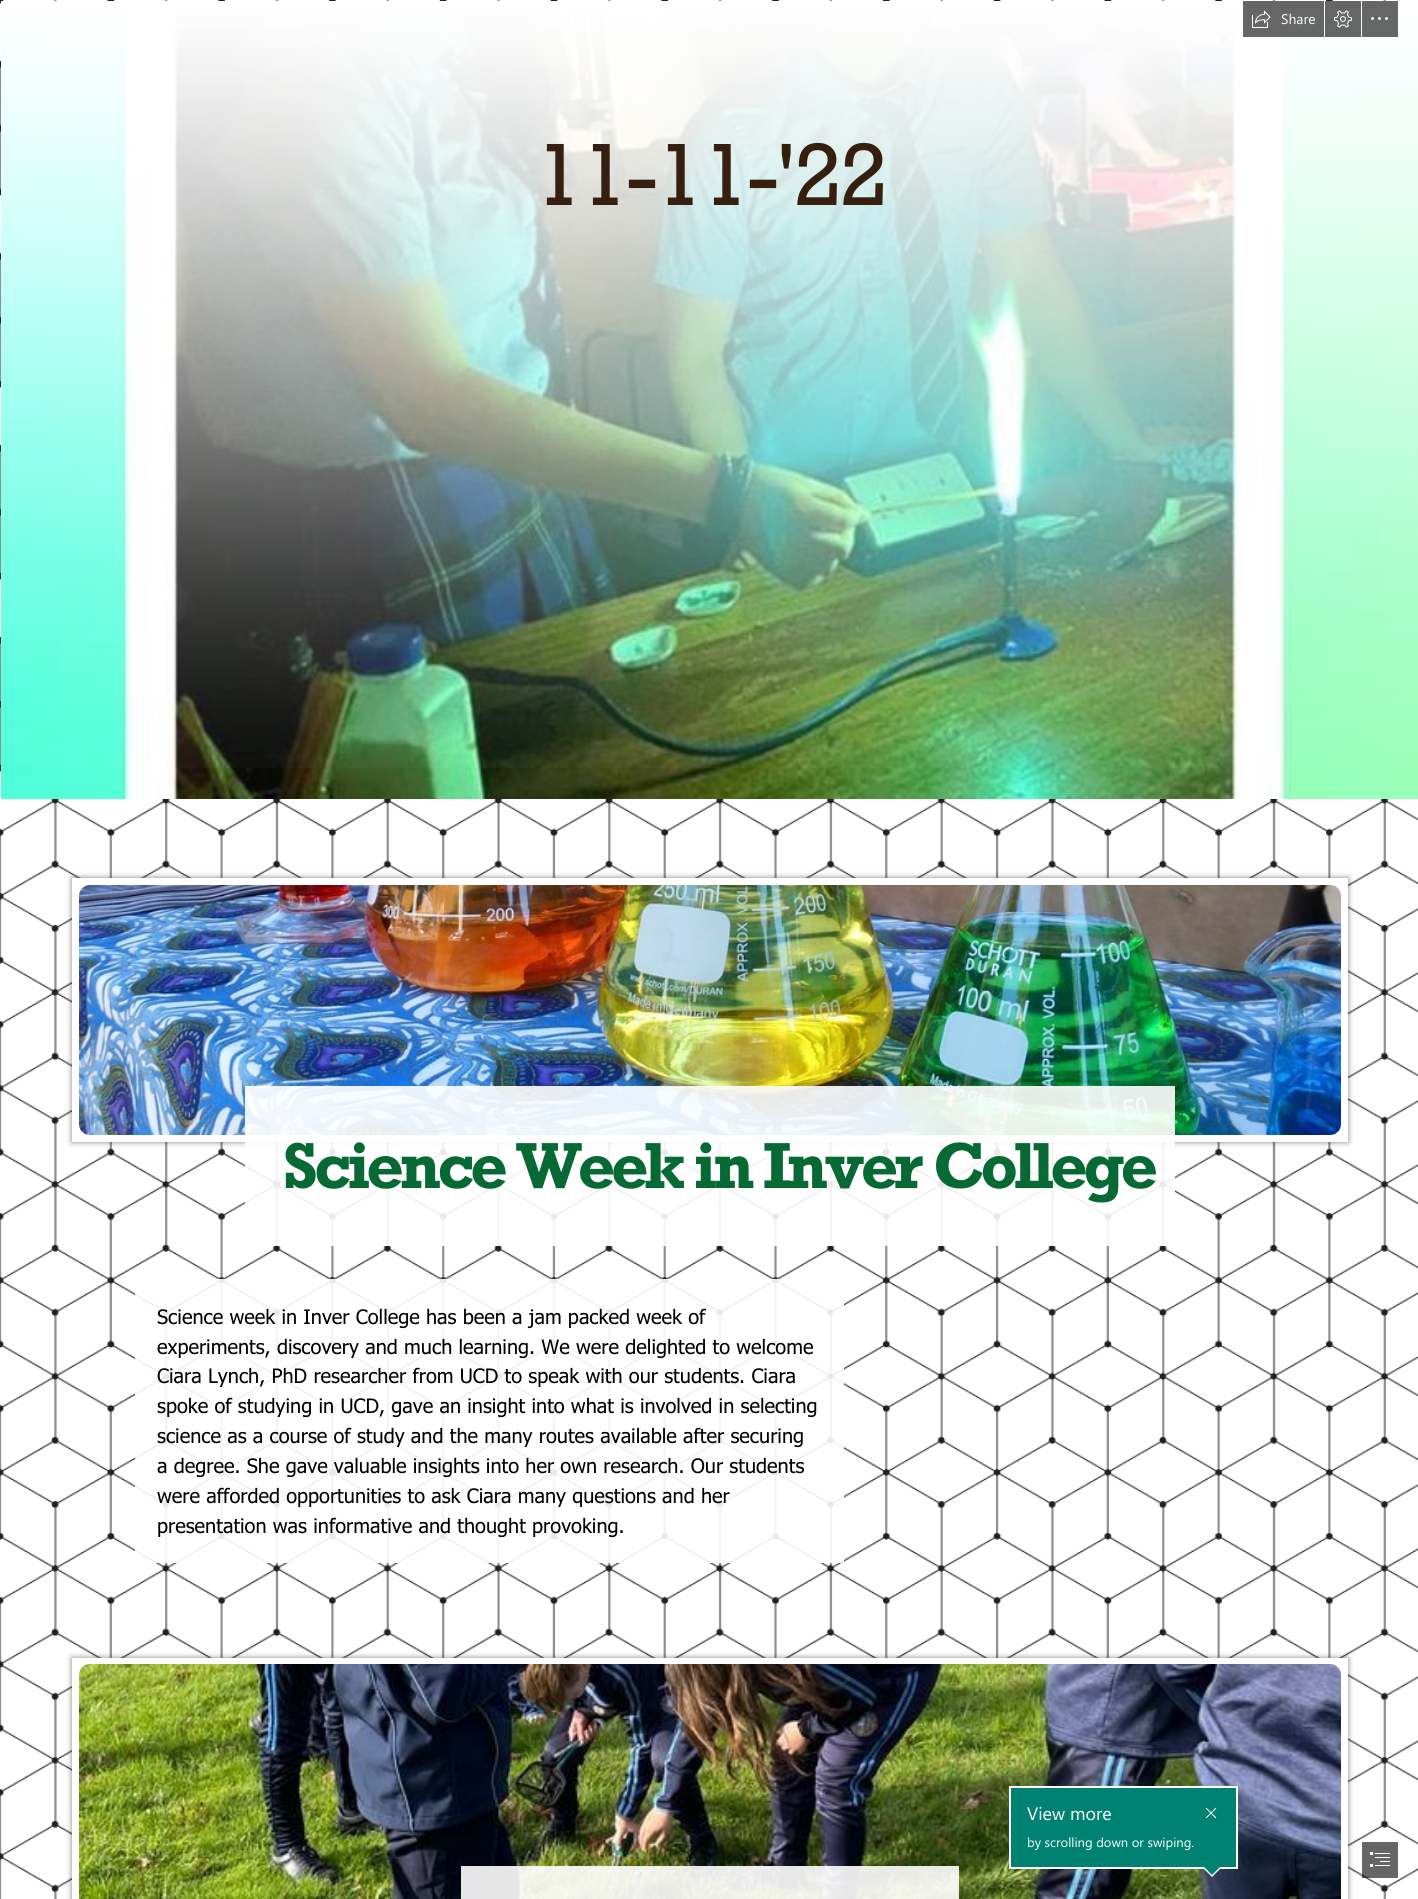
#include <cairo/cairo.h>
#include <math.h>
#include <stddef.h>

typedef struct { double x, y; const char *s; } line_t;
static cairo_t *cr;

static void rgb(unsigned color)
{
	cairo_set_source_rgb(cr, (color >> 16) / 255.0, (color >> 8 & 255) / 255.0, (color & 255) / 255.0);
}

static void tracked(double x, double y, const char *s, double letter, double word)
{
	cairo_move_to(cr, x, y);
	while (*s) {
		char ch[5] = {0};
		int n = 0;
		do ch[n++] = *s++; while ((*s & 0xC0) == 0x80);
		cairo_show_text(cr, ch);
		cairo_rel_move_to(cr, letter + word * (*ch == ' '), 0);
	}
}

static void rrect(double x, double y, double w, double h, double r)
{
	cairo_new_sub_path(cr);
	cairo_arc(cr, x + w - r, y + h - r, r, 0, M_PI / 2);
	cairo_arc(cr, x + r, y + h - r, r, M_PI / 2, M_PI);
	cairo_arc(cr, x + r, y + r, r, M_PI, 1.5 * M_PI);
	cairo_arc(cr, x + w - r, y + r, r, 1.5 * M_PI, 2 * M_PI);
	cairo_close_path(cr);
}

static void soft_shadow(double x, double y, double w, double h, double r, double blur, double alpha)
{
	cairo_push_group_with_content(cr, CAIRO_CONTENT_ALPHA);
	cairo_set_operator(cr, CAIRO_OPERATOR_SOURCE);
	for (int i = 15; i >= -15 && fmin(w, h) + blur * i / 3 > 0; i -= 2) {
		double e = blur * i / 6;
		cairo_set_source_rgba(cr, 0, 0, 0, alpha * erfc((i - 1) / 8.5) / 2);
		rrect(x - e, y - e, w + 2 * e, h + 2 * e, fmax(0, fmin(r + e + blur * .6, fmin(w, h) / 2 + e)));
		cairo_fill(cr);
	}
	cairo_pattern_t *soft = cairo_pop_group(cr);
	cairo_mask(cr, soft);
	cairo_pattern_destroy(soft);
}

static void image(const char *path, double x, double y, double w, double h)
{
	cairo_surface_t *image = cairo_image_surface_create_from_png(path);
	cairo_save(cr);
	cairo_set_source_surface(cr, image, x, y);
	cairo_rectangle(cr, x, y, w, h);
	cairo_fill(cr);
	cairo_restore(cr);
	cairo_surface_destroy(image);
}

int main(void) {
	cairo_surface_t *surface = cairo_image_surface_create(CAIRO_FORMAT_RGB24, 1418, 1899);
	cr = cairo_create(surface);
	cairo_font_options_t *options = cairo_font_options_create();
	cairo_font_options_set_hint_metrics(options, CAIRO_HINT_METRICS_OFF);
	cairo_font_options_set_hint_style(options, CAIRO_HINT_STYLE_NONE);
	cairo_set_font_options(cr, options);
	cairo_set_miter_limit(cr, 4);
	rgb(0xffffff);
	cairo_paint(cr);
	image("img/4.png", 0, 0, 1418, 1899);
	image("img/6.png", 1, 8, 1417, 791);
	image("img/5.png", 1, 1, 1417, 767);
	cairo_set_source_rgba(cr, 0, 0, 0, 0.6);
	cairo_rectangle(cr, 1243, 1, 81, 36);
	cairo_fill(cr);
	image("img/1.png", 1252, 10, 19, 18);
	cairo_rectangle(cr, 1325, 1, 36, 36);
	cairo_fill(cr);
	image("img/2.png", 1334, 10, 18, 18);
	cairo_rectangle(cr, 1362, 1, 36, 36);
	cairo_fill(cr);
	image("img/3.png", 1371, 17, 17, 3);
	rgb(0x000000);
	soft_shadow(72, 878, 1276, 264, 0, 3, 0.5);
	rgb(0xffffff);
	cairo_rectangle(cr, 72, 878, 1276, 264);
	cairo_fill(cr);
	image("img/7.png", 79, 885, 1262, 250);
	cairo_set_source_rgba(cr, 1, 1, 1, 0.9);
	cairo_rectangle(cr, 245, 1086, 930, 160);
	cairo_fill(cr);
	cairo_rectangle(cr, 135, 1279, 709, 284);
	cairo_fill(cr);
	rgb(0x000000);
	soft_shadow(72, 1658, 1276, 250, 0, 3, 0.5);
	rgb(0xffffff);
	cairo_rectangle(cr, 72, 1658, 1276, 241);
	cairo_fill(cr);
	image("img/8.png", 79, 1664, 1262, 235);
	cairo_set_source_rgba(cr, 1, 1, 1, 0.9);
	cairo_rectangle(cr, 461, 1866, 498, 33);
	cairo_fill(cr);
	rgb(0x008272);
	cairo_rectangle(cr, 1010, 1787, 227, 81);
	cairo_fill_preserve(cr);
	rgb(0xffffff);
	cairo_stroke(cr);
	image("img/9.png", 1205, 1807, 12, 12);
	cairo_new_path(cr);
	cairo_move_to(cr, 1202, 1867);
	cairo_line_to(cr, 1222, 1867);
	cairo_line_to(cr, 1212, 1877);
	cairo_close_path(cr);
	cairo_fill(cr);
	rgb(0x008272);
	cairo_new_path(cr);
	cairo_move_to(cr, 1204, 1867);
	cairo_line_to(cr, 1220, 1867);
	cairo_line_to(cr, 1212, 1875);
	cairo_close_path(cr);
	cairo_fill(cr);
	cairo_set_source_rgba(cr, 0, 0, 0, 0.6);
	cairo_rectangle(cr, 1362, 1842, 36, 36);
	cairo_fill(cr);
	image("img/10.png", 1370, 1852, 20, 15);
	cairo_select_font_face(cr, "Segoe UI", CAIRO_FONT_SLANT_NORMAL, CAIRO_FONT_WEIGHT_NORMAL);
	cairo_set_font_size(cr, 14);
	rgb(0xffffff);
	cairo_move_to(cr, 1281, 24);
	cairo_show_text(cr, "Share");
	cairo_select_font_face(cr, "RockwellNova", CAIRO_FONT_SLANT_NORMAL, CAIRO_FONT_WEIGHT_NORMAL);
	cairo_set_font_size(cr, 83);
	rgb(0x361f0f);
	tracked(534, 205, "11-11-'22", -2.75, 0);
	cairo_select_font_face(cr, "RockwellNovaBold", CAIRO_FONT_SLANT_NORMAL, CAIRO_FONT_WEIGHT_BOLD);
	cairo_set_font_size(cr, 61);
	rgb(0x076a34);
	tracked(283, 1188, "Science Week in Inver College", -3.9, 0);
	cairo_select_font_face(cr, "Tahoma", CAIRO_FONT_SLANT_NORMAL, CAIRO_FONT_WEIGHT_NORMAL);
	cairo_set_font_size(cr, 19.95);
	rgb(0x000000);
	{
		static const line_t items[] = {
			{157, 1324, "Science week in Inver College has been a jam packed week of"},
			{157, 1354, "experiments, discovery and much learning. We were delighted to welcome"},
			{157, 1383, "Ciara Lynch, PhD researcher from UCD to speak with our students. Ciara"},
			{157, 1413, "spoke of studying in UCD, gave an insight into what is involved in selecting"},
			{157, 1443, "science as a course of study and the many routes available after securing"},
			{157, 1473, "a degree. She gave valuable insights into her own research. Our students"},
			{157, 1503, "were afforded opportunities to ask Ciara many questions and her"},
			{157, 1533, "presentation was informative and thought provoking."},
		};
		for (size_t i = 0; i < sizeof items / sizeof *items; i++) {
			cairo_move_to(cr, items[i].x, items[i].y);
			cairo_show_text(cr, items[i].s);
		}
	}
	cairo_select_font_face(cr, "Segoe UI", CAIRO_FONT_SLANT_NORMAL, CAIRO_FONT_WEIGHT_NORMAL);
	cairo_set_font_size(cr, 18);
	rgb(0xffffff);
	cairo_move_to(cr, 1027, 1820);
	cairo_show_text(cr, "View more");
	cairo_set_font_size(cr, 13);
	cairo_move_to(cr, 1027, 1847);
	cairo_show_text(cr, "by scrolling down or swiping.");
	cairo_surface_write_to_png(surface, "page.png");
	cairo_font_options_destroy(options);
	cairo_destroy(cr);
	cairo_surface_destroy(surface);
	return 0;
}
